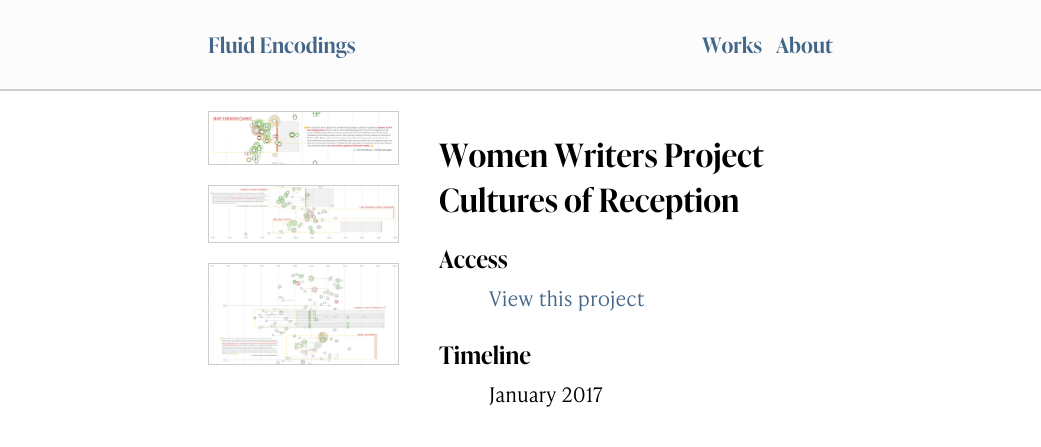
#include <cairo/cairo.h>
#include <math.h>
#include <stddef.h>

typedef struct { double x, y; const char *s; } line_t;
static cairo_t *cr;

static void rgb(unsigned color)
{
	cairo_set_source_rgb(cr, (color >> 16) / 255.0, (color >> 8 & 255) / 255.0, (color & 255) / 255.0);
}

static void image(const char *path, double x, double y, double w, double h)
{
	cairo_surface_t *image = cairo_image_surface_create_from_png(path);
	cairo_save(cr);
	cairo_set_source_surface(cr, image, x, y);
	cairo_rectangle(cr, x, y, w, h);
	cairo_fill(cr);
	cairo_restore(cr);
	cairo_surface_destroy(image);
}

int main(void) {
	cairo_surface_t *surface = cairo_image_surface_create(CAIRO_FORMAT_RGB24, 1041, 447);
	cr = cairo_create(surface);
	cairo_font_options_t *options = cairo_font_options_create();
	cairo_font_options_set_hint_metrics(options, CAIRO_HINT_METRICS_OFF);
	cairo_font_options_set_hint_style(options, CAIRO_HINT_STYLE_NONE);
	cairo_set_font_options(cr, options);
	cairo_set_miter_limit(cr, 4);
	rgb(0xfcfcfc);
	cairo_paint(cr);
	rgb(0xffffff);
	cairo_rectangle(cr, 0, 91, 1041, 356);
	cairo_fill(cr);
	rgb(0xcccccc);
	cairo_rectangle(cr, 0, 89, 1041, 2);
	cairo_fill(cr);
	cairo_rectangle(cr, 208.5, 111.5, 190, 53);
	cairo_set_line_width(cr, 1);
	cairo_stroke(cr);
	image("img/1.png", 212, 112, 181, 52);
	cairo_rectangle(cr, 208.5, 185.5, 190, 57);
	cairo_stroke(cr);
	image("img/2.png", 210, 186, 188, 53);
	cairo_rectangle(cr, 208.5, 263.5, 190, 101);
	cairo_stroke(cr);
	image("img/3.png", 210, 265, 187, 99);
	cairo_select_font_face(cr, "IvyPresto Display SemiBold", CAIRO_FONT_SLANT_NORMAL, CAIRO_FONT_WEIGHT_NORMAL);
	cairo_set_font_size(cr, 21.25);
	rgb(0x446688);
	{
		static const line_t items[] = {
			{208, 53, "Fluid Encodings"},
			{702, 53, "Works"},
			{776, 53, "About"},
		};
		for (size_t i = 0; i < sizeof items / sizeof *items; i++) {
			cairo_move_to(cr, items[i].x, items[i].y);
			cairo_show_text(cr, items[i].s);
		}
	}
	cairo_set_font_size(cr, 32);
	rgb(0x000000);
	cairo_move_to(cr, 439, 167);
	cairo_show_text(cr, "Women Writers Project");
	cairo_move_to(cr, 439, 212);
	cairo_show_text(cr, "Cultures of Reception");
	cairo_set_font_size(cr, 24);
	cairo_move_to(cr, 439, 268);
	cairo_show_text(cr, "Access");
	cairo_select_font_face(cr, "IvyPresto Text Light", CAIRO_FONT_SLANT_NORMAL, CAIRO_FONT_WEIGHT_NORMAL);
	cairo_set_font_size(cr, 20);
	rgb(0x446688);
	cairo_move_to(cr, 489, 306);
	cairo_show_text(cr, "View this project");
	cairo_select_font_face(cr, "IvyPresto Display SemiBold", CAIRO_FONT_SLANT_NORMAL, CAIRO_FONT_WEIGHT_NORMAL);
	cairo_set_font_size(cr, 24);
	rgb(0x000000);
	cairo_move_to(cr, 439, 364);
	cairo_show_text(cr, "Timeline");
	cairo_select_font_face(cr, "IvyPresto Text Light", CAIRO_FONT_SLANT_NORMAL, CAIRO_FONT_WEIGHT_NORMAL);
	cairo_set_font_size(cr, 20);
	cairo_move_to(cr, 489, 402);
	cairo_show_text(cr, "January 2017");
	cairo_surface_write_to_png(surface, "page.png");
	cairo_font_options_destroy(options);
	cairo_destroy(cr);
	cairo_surface_destroy(surface);
	return 0;
}
